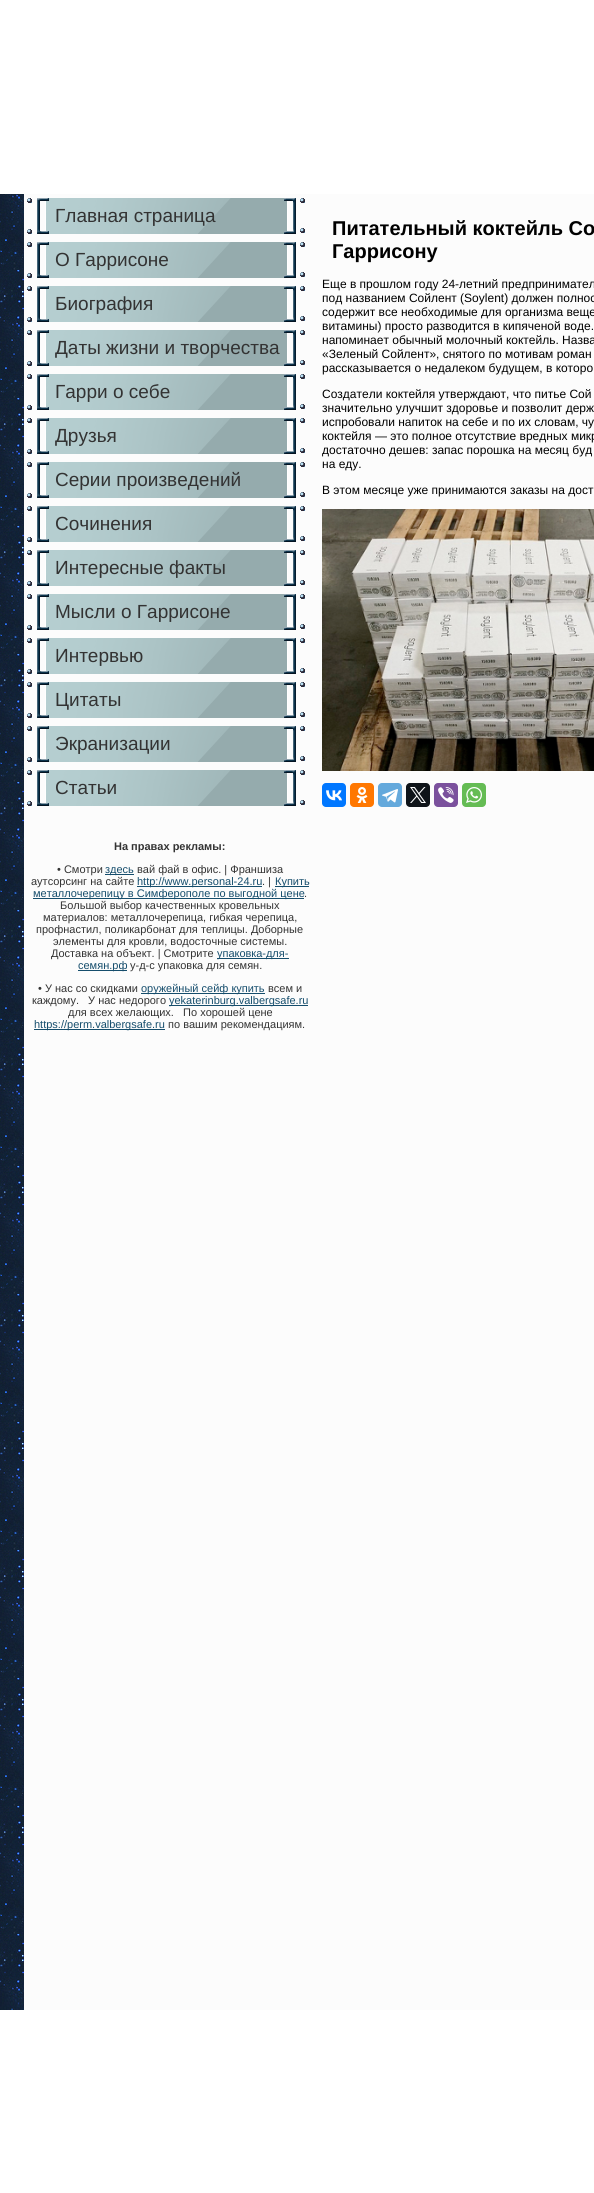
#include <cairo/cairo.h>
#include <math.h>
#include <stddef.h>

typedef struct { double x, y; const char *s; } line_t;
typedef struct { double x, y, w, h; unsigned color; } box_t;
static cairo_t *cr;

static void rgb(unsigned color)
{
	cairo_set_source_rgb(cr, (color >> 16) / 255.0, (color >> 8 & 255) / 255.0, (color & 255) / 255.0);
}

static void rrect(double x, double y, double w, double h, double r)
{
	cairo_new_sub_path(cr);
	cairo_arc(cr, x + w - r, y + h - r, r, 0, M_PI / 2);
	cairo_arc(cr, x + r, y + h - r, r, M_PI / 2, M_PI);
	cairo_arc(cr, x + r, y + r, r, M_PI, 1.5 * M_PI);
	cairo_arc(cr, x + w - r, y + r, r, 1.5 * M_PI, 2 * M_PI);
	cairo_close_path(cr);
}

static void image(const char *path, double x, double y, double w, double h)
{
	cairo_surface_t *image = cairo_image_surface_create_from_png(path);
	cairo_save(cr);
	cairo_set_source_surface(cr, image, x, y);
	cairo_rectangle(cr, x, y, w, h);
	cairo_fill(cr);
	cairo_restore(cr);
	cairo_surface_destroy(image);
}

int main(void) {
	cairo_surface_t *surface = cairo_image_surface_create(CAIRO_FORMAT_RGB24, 594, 2193);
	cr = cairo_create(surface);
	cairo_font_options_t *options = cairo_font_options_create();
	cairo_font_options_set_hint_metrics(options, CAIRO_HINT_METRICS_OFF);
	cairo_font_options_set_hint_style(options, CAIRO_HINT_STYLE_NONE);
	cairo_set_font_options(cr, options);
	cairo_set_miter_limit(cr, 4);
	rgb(0xffffff);
	cairo_paint(cr);
	rgb(0xfcfcfc);
	cairo_rectangle(cr, 24, 194, 570, 1816);
	cairo_fill(cr);
	image("img/1.png", 0, 194, 24, 1803);
	image("img/2.png", 27, 198, 278, 36);
	image("img/2.png", 27, 242, 278, 36);
	image("img/2.png", 27, 286, 278, 36);
	image("img/2.png", 27, 330, 278, 36);
	image("img/2.png", 27, 374, 278, 36);
	image("img/2.png", 27, 418, 278, 36);
	image("img/2.png", 27, 462, 278, 36);
	image("img/2.png", 27, 506, 278, 36);
	image("img/2.png", 27, 550, 278, 36);
	image("img/2.png", 27, 594, 278, 36);
	image("img/2.png", 27, 638, 278, 36);
	image("img/2.png", 27, 682, 278, 36);
	image("img/2.png", 27, 726, 278, 36);
	image("img/2.png", 27, 770, 278, 36);
	{
		static const box_t items[] = {
			{105, 874, 29, 1, 0x154d6c},
			{137, 886, 125, 1, 0x154d6c},
			{275, 886, 34, 1, 0x154d6c},
			{33, 898, 271, 1, 0x154d6c},
			{217, 958, 72, 1, 0x154d6c},
			{78, 970, 49, 1, 0x154d6c},
			{141, 993, 124, 1, 0x154d6c},
			{169, 1005, 139, 1, 0x154d6c},
			{34, 1029, 131, 1, 0x154d6c},
		};
		for (size_t i = 0; i < sizeof items / sizeof *items; i++) {
			rgb(items[i].color);
			cairo_rectangle(cr, items[i].x, items[i].y, items[i].w, items[i].h);
			cairo_fill(cr);
		}
	}
	image("img/3.png", 322, 509, 272, 262);
	rgb(0x0077ff);
	rrect(322, 783, 24, 24, 4);
	cairo_fill(cr);
	image("img/4.png", 326, 790, 16, 11);
	rgb(0xff7700);
	rrect(350, 783, 24, 24, 4);
	cairo_fill(cr);
	image("img/5.png", 356, 787, 12, 16);
	rgb(0x64a9dc);
	rrect(378, 783, 24, 24, 4);
	cairo_fill(cr);
	image("img/6.png", 382, 789, 16, 14);
	rgb(0x0f1419);
	rrect(406, 783, 24, 24, 4);
	cairo_fill(cr);
	image("img/7.png", 410, 787, 16, 16);
	rgb(0x7b519d);
	rrect(434, 783, 24, 24, 4);
	cairo_fill(cr);
	image("img/8.png", 438, 787, 16, 16);
	rgb(0x65bc54);
	rrect(462, 783, 24, 24, 4);
	cairo_fill(cr);
	image("img/9.png", 466, 787, 16, 16);
	image("img/10.png", 0, 1997, 24, 13);
	cairo_select_font_face(cr, "Liberation Sans", CAIRO_FONT_SLANT_NORMAL, CAIRO_FONT_WEIGHT_NORMAL);
	cairo_set_font_size(cr, 19);
	rgb(0x333333);
	{
		static const line_t items[] = {
			{55, 222, "Главная страница"},
			{55, 266, "О Гаррисоне"},
			{55, 310, "Биография"},
			{55, 354, "Даты жизни и творчества"},
			{55, 398, "Гарри о себе"},
			{55, 442, "Друзья"},
			{55, 486, "Серии произведений"},
			{55, 530, "Сочинения"},
			{55, 574, "Интересные факты"},
			{55, 618, "Мысли о Гаррисоне"},
			{55, 662, "Интервью"},
			{55, 706, "Цитаты"},
			{55, 750, "Экранизации"},
			{55, 794, "Статьи"},
		};
		for (size_t i = 0; i < sizeof items / sizeof *items; i++) {
			cairo_move_to(cr, items[i].x, items[i].y);
			cairo_show_text(cr, items[i].s);
		}
	}
	cairo_select_font_face(cr, "Liberation Sans", CAIRO_FONT_SLANT_NORMAL, CAIRO_FONT_WEIGHT_BOLD);
	cairo_set_font_size(cr, 11);
	cairo_move_to(cr, 114, 850);
	cairo_show_text(cr, "На правах рекламы:");
	cairo_select_font_face(cr, "Liberation Sans", CAIRO_FONT_SLANT_NORMAL, CAIRO_FONT_WEIGHT_NORMAL);
	cairo_move_to(cr, 57, 873);
	cairo_show_text(cr, "• Смотри");
	rgb(0x154d6c);
	cairo_move_to(cr, 105, 873);
	cairo_show_text(cr, "здесь");
	rgb(0x333333);
	cairo_move_to(cr, 137, 873);
	cairo_show_text(cr, "вай фай в офис. | Франшиза");
	cairo_move_to(cr, 31, 885);
	cairo_show_text(cr, "аутсорсинг на сайте");
	rgb(0x154d6c);
	cairo_move_to(cr, 137, 885);
	cairo_show_text(cr, "http://www.personal-24.ru");
	rgb(0x333333);
	cairo_move_to(cr, 262, 885);
	cairo_show_text(cr, ". |");
	rgb(0x154d6c);
	cairo_move_to(cr, 275, 885);
	cairo_show_text(cr, "Купить");
	cairo_move_to(cr, 33, 897);
	cairo_show_text(cr, "металлочерепицу в Симферополе по выгодной цене");
	rgb(0x333333);
	{
		static const line_t items[] = {
			{304, 897, "."},
			{60, 909, "Большой выбор качественных кровельных"},
			{43, 921, "материалов: металлочерепица, гибкая черепица,"},
			{36, 933, "профнастил, поликарбонат для теплицы. Доборные"},
			{53, 945, "элементы для кровли, водосточные системы."},
			{51, 957, "Доставка на объект. | Смотрите"},
		};
		for (size_t i = 0; i < sizeof items / sizeof *items; i++) {
			cairo_move_to(cr, items[i].x, items[i].y);
			cairo_show_text(cr, items[i].s);
		}
	}
	rgb(0x154d6c);
	cairo_move_to(cr, 217, 957);
	cairo_show_text(cr, "упаковка-для-");
	cairo_move_to(cr, 78, 969);
	cairo_show_text(cr, "семян.рф");
	rgb(0x333333);
	cairo_move_to(cr, 130, 969);
	cairo_show_text(cr, "у-д-с упаковка для семян.");
	cairo_move_to(cr, 38, 992);
	cairo_show_text(cr, "• У нас со скидками");
	rgb(0x154d6c);
	cairo_move_to(cr, 141, 992);
	cairo_show_text(cr, "оружейный сейф купить");
	rgb(0x333333);
	cairo_move_to(cr, 268, 992);
	cairo_show_text(cr, "всем и");
	cairo_move_to(cr, 32, 1004);
	cairo_show_text(cr, "каждому.   У нас недорого");
	rgb(0x154d6c);
	cairo_move_to(cr, 169, 1004);
	cairo_show_text(cr, "yekaterinburg.valbergsafe.ru");
	rgb(0x333333);
	cairo_move_to(cr, 68, 1016);
	cairo_show_text(cr, "для всех желающих.   По хорошей цене");
	rgb(0x154d6c);
	cairo_move_to(cr, 34, 1028);
	cairo_show_text(cr, "https://perm.valbergsafe.ru");
	rgb(0x333333);
	cairo_move_to(cr, 168, 1028);
	cairo_show_text(cr, "по вашим рекомендациям.");
	cairo_select_font_face(cr, "Liberation Sans", CAIRO_FONT_SLANT_NORMAL, CAIRO_FONT_WEIGHT_BOLD);
	cairo_set_font_size(cr, 20);
	rgb(0x000000);
	cairo_move_to(cr, 332, 235);
	cairo_show_text(cr, "Питательный коктейль Со");
	cairo_move_to(cr, 332, 258);
	cairo_show_text(cr, "Гаррисону");
	cairo_select_font_face(cr, "Liberation Sans", CAIRO_FONT_SLANT_NORMAL, CAIRO_FONT_WEIGHT_NORMAL);
	cairo_set_font_size(cr, 12);
	{
		static const line_t items[] = {
			{322, 288, "Еще в прошлом году 24-летний предпринимател"},
			{322, 302, "под названием Сойлент (Soylent) должен полнос"},
			{322, 316, "содержит все необходимые для организма веще"},
			{322, 330, "витамины) просто разводится в кипяченой воде."},
			{322, 344, "напоминает обычный молочный коктейль. Назва"},
			{322, 358, "«Зеленый Сойлент», снятого по мотивам роман"},
			{322, 372, "рассказывается о недалеком будущем, в которо"},
			{322, 398, "Создатели коктейля утверждают, что питье Сой"},
			{322, 412, "значительно улучшит здоровье и позволит держ"},
			{322, 426, "испробовали напиток на себе и по их словам, чу"},
			{322, 440, "коктейля — это полное отсутствие вредных микр"},
			{322, 454, "достаточно дешев: запас порошка на месяц буд"},
			{322, 468, "на еду."},
			{322, 494, "В этом месяце уже принимаются заказы на дост"},
		};
		for (size_t i = 0; i < sizeof items / sizeof *items; i++) {
			cairo_move_to(cr, items[i].x, items[i].y);
			cairo_show_text(cr, items[i].s);
		}
	}
	cairo_surface_write_to_png(surface, "page.png");
	cairo_font_options_destroy(options);
	cairo_destroy(cr);
	cairo_surface_destroy(surface);
	return 0;
}
